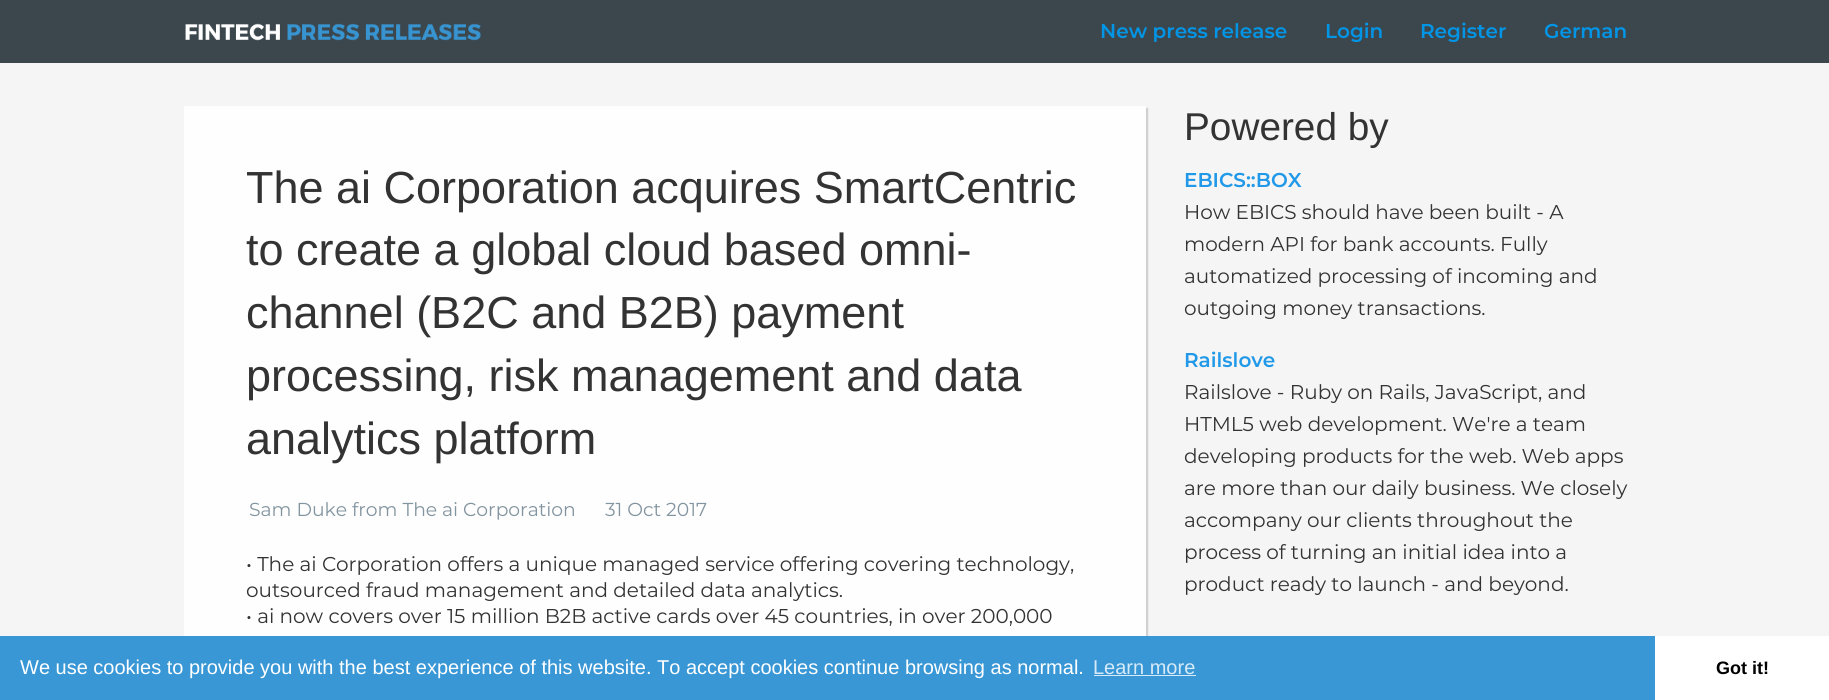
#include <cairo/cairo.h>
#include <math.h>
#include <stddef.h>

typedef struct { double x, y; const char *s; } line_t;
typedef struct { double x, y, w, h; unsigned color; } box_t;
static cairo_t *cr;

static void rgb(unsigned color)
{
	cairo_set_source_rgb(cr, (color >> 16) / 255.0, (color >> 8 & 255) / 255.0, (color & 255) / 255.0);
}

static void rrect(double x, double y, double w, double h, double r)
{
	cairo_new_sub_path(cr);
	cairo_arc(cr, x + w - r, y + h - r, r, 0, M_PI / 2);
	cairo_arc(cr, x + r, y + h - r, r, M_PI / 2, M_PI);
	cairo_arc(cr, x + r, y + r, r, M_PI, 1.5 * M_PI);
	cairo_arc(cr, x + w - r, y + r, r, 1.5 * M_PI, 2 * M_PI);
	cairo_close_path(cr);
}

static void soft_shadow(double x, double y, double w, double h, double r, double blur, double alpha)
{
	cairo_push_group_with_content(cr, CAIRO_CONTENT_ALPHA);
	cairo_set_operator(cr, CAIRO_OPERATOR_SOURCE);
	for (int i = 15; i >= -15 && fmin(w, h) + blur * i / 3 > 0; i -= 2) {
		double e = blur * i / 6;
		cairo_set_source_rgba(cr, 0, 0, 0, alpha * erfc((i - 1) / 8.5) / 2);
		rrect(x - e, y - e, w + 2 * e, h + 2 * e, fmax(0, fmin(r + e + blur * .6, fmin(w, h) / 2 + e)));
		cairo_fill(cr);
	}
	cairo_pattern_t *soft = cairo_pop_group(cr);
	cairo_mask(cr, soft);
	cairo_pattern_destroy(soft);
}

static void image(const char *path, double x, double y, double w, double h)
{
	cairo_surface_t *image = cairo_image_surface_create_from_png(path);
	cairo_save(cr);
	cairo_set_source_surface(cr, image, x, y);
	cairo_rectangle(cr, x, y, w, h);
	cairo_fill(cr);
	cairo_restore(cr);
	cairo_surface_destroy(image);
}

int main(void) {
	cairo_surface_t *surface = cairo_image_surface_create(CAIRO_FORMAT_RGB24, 1829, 700);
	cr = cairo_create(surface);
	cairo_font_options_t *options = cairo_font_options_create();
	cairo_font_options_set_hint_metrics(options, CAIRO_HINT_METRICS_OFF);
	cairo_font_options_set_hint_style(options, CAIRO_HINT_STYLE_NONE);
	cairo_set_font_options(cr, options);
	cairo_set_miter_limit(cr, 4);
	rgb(0x3b464d);
	cairo_paint(cr);
	image("img/1.png", 185, 23, 296, 18);
	rgb(0xf5f5f5);
	cairo_rectangle(cr, 0, 63, 1829, 573);
	cairo_fill(cr);
	rgb(0x000000);
	soft_shadow(185, 108, 963, 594, 0, 0.5, 0.16);
	{
		static const box_t items[] = {
			{184, 106, 962, 530, 0xfefefe},
			{0, 636, 1655, 64, 0x3997d6},
			{1094, 675, 102, 1, 0xd7eaf7},
			{1655, 636, 174, 64, 0xffffff},
		};
		for (size_t i = 0; i < sizeof items / sizeof *items; i++) {
			rgb(items[i].color);
			cairo_rectangle(cr, items[i].x, items[i].y, items[i].w, items[i].h);
			cairo_fill(cr);
		}
	}
	cairo_select_font_face(cr, "Montserrat SemiBold", CAIRO_FONT_SLANT_NORMAL, CAIRO_FONT_WEIGHT_NORMAL);
	cairo_set_font_size(cr, 20);
	rgb(0x0395e5);
	{
		static const line_t items[] = {
			{1100, 38, "New press release"},
			{1325, 38, "Login"},
			{1420, 38, "Register"},
			{1544, 38, "German"},
		};
		for (size_t i = 0; i < sizeof items / sizeof *items; i++) {
			cairo_move_to(cr, items[i].x, items[i].y);
			cairo_show_text(cr, items[i].s);
		}
	}
	cairo_select_font_face(cr, "Liberation Sans", CAIRO_FONT_SLANT_NORMAL, CAIRO_FONT_WEIGHT_NORMAL);
	cairo_set_font_size(cr, 45);
	rgb(0x333333);
	{
		static const line_t items[] = {
			{246, 203, "The ai Corporation acquires SmartCentric"},
			{246, 265, "to create a global cloud based omni-"},
			{246, 328, "channel (B2C and B2B) payment"},
			{246, 391, "processing, risk management and data"},
			{246, 454, "analytics platform"},
		};
		for (size_t i = 0; i < sizeof items / sizeof *items; i++) {
			cairo_move_to(cr, items[i].x, items[i].y);
			cairo_show_text(cr, items[i].s);
		}
	}
	cairo_select_font_face(cr, "Montserrat", CAIRO_FONT_SLANT_NORMAL, CAIRO_FONT_WEIGHT_NORMAL);
	cairo_set_font_size(cr, 18.75);
	rgb(0x82949f);
	cairo_move_to(cr, 249, 516);
	cairo_show_text(cr, "Sam Duke from The ai Corporation");
	cairo_move_to(cr, 605, 516);
	cairo_show_text(cr, "31 Oct 2017");
	cairo_set_font_size(cr, 20);
	rgb(0x333333);
	{
		static const line_t items[] = {
			{246, 571, "• The ai Corporation offers a unique managed service offering covering technology,"},
			{246, 597, "outsourced fraud management and detailed data analytics."},
			{246, 623, "• ai now covers over 15 million B2B active cards over 45 countries, in over 200,000"},
		};
		for (size_t i = 0; i < sizeof items / sizeof *items; i++) {
			cairo_move_to(cr, items[i].x, items[i].y);
			cairo_show_text(cr, items[i].s);
		}
	}
	cairo_select_font_face(cr, "Liberation Sans", CAIRO_FONT_SLANT_NORMAL, CAIRO_FONT_WEIGHT_NORMAL);
	cairo_set_font_size(cr, 38.75);
	cairo_move_to(cr, 1184, 140);
	cairo_show_text(cr, "Powered by");
	cairo_select_font_face(cr, "Montserrat SemiBold", CAIRO_FONT_SLANT_NORMAL, CAIRO_FONT_WEIGHT_NORMAL);
	cairo_set_font_size(cr, 20);
	rgb(0x2199e8);
	cairo_move_to(cr, 1184, 187);
	cairo_show_text(cr, "EBICS::BOX");
	cairo_select_font_face(cr, "Montserrat", CAIRO_FONT_SLANT_NORMAL, CAIRO_FONT_WEIGHT_NORMAL);
	rgb(0x333333);
	{
		static const line_t items[] = {
			{1184, 219, "How EBICS should have been built - A"},
			{1184, 251, "modern API for bank accounts. Fully"},
			{1184, 283, "automatized processing of incoming and"},
			{1184, 315, "outgoing money transactions."},
		};
		for (size_t i = 0; i < sizeof items / sizeof *items; i++) {
			cairo_move_to(cr, items[i].x, items[i].y);
			cairo_show_text(cr, items[i].s);
		}
	}
	cairo_select_font_face(cr, "Montserrat SemiBold", CAIRO_FONT_SLANT_NORMAL, CAIRO_FONT_WEIGHT_NORMAL);
	rgb(0x2199e8);
	cairo_move_to(cr, 1184, 367);
	cairo_show_text(cr, "Railslove");
	cairo_select_font_face(cr, "Montserrat", CAIRO_FONT_SLANT_NORMAL, CAIRO_FONT_WEIGHT_NORMAL);
	rgb(0x333333);
	{
		static const line_t items[] = {
			{1184, 399, "Railslove - Ruby on Rails, JavaScript, and"},
			{1184, 431, "HTML5 web development. We're a team"},
			{1184, 463, "developing products for the web. Web apps"},
			{1184, 495, "are more than our daily business. We closely"},
			{1184, 527, "accompany our clients throughout the"},
			{1184, 559, "process of turning an initial idea into a"},
			{1184, 591, "product ready to launch - and beyond."},
		};
		for (size_t i = 0; i < sizeof items / sizeof *items; i++) {
			cairo_move_to(cr, items[i].x, items[i].y);
			cairo_show_text(cr, items[i].s);
		}
	}
	cairo_select_font_face(cr, "Liberation Sans", CAIRO_FONT_SLANT_NORMAL, CAIRO_FONT_WEIGHT_NORMAL);
	rgb(0xffffff);
	cairo_move_to(cr, 20, 674);
	cairo_show_text(cr, "We use cookies to provide you with the best experience of this website. To accept cookies continue browsing as normal.");
	rgb(0xd7eaf7);
	cairo_move_to(cr, 1093, 674);
	cairo_show_text(cr, "Learn more");
	cairo_select_font_face(cr, "Liberation Sans", CAIRO_FONT_SLANT_NORMAL, CAIRO_FONT_WEIGHT_BOLD);
	cairo_set_font_size(cr, 18);
	rgb(0x000000);
	cairo_move_to(cr, 1716, 674);
	cairo_show_text(cr, "Got it!");
	cairo_surface_write_to_png(surface, "page.png");
	cairo_font_options_destroy(options);
	cairo_destroy(cr);
	cairo_surface_destroy(surface);
	return 0;
}
